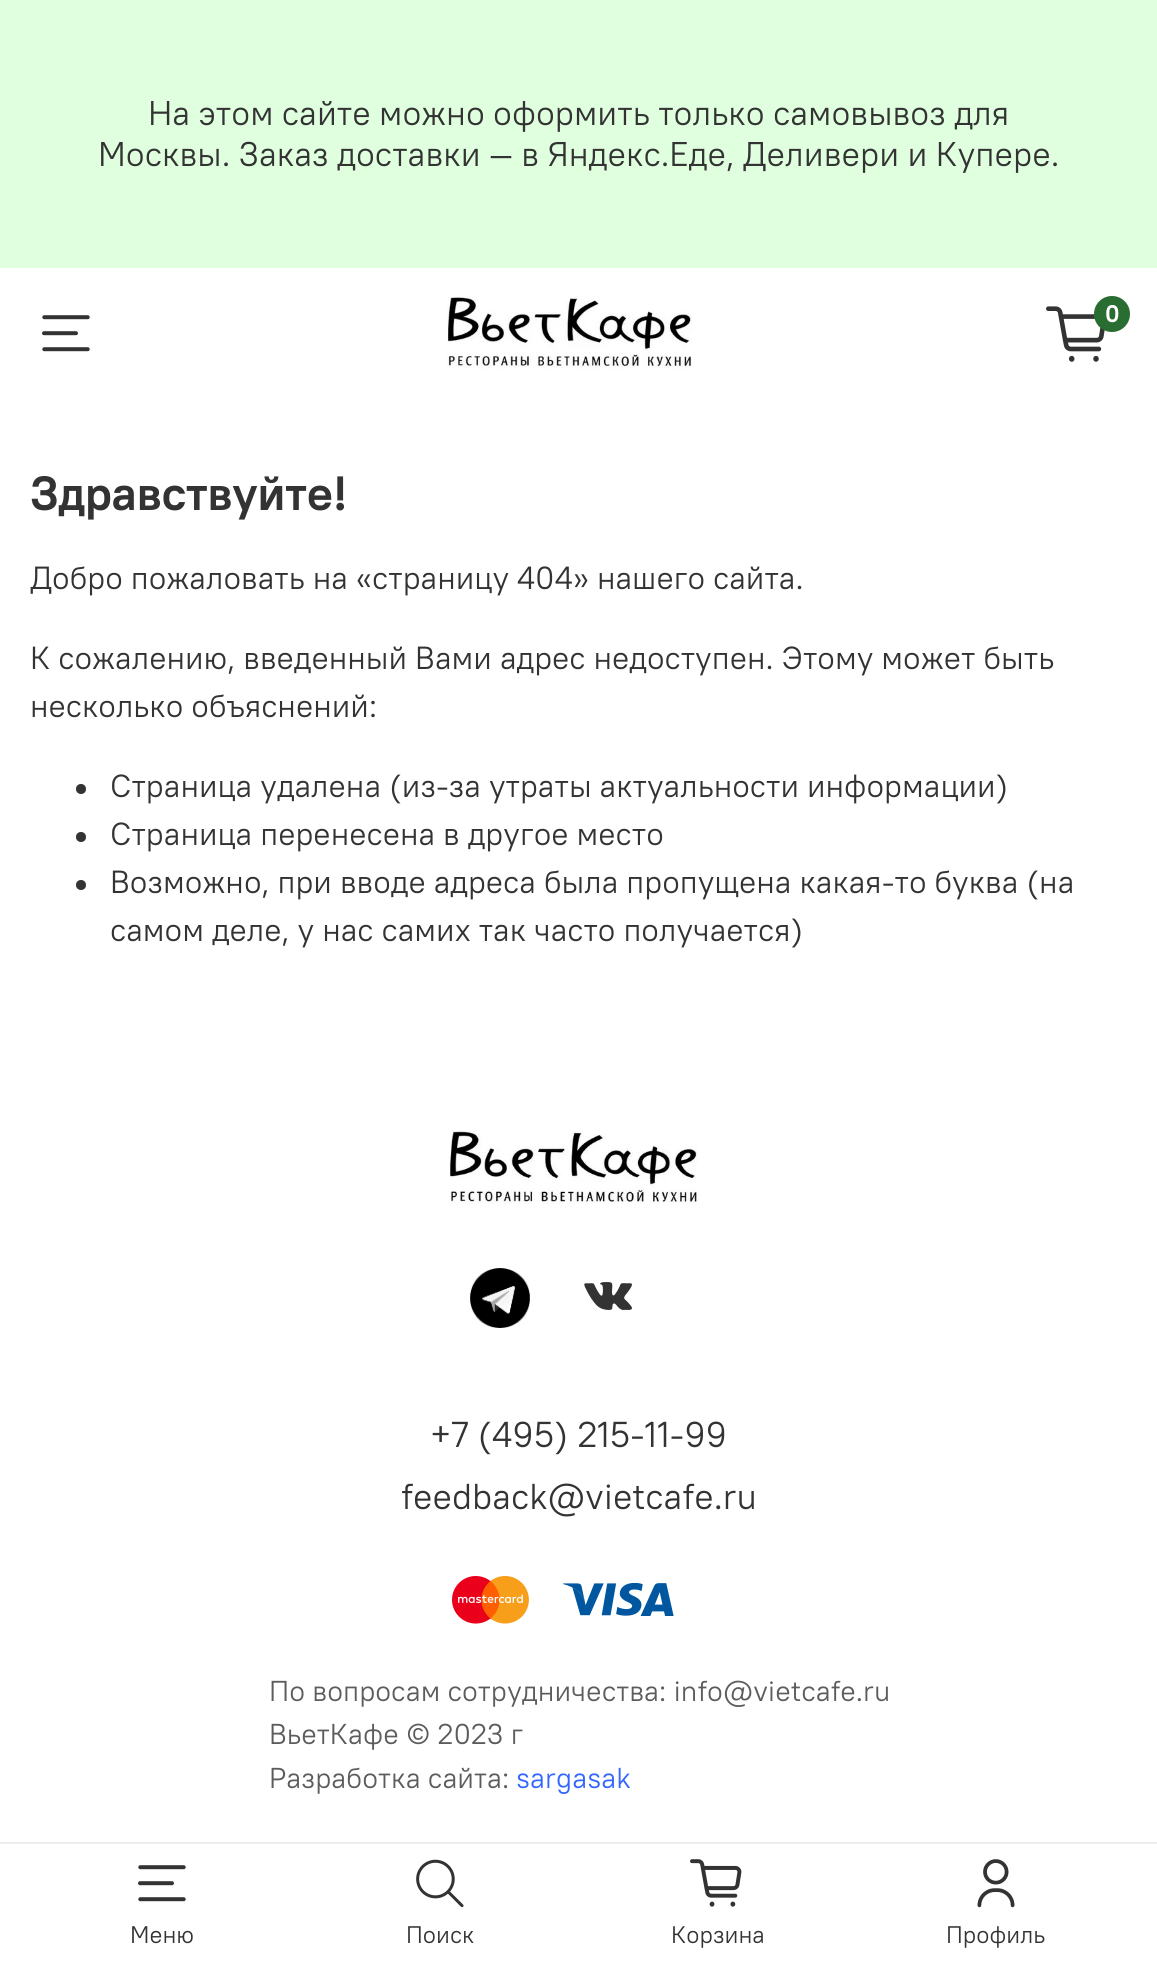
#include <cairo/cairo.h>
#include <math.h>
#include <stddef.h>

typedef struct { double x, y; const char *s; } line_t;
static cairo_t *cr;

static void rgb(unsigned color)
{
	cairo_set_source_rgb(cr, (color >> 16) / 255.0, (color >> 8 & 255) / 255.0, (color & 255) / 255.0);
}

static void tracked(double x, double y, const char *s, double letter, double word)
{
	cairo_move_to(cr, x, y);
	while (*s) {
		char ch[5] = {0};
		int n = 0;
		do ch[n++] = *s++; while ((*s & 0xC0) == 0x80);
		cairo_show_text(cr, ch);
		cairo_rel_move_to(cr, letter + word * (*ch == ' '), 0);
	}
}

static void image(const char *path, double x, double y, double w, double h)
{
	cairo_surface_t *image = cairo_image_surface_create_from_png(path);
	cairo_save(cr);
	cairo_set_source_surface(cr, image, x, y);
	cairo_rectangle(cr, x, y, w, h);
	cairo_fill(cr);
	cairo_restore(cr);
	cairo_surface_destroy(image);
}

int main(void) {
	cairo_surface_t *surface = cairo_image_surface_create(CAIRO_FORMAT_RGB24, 1157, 1966);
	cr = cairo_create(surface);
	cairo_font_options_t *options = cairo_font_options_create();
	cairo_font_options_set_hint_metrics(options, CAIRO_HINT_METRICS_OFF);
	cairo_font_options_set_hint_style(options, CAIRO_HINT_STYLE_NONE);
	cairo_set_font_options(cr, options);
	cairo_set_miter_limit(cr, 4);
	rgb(0xffffff);
	cairo_paint(cr);
	rgb(0xdfffdf);
	cairo_rectangle(cr, 0, 0, 1157, 268);
	cairo_fill(cr);
	image("img/1.png", 42, 315, 48, 37);
	image("img/2.png", 447, 295, 245, 74);
	image("img/3.png", 1046, 306, 59, 56);
	rgb(0x2a6d33);
	cairo_arc(cr, 1112, 314, 18, 0, 2 * M_PI);
	cairo_fill(cr);
	rgb(0x333333);
	cairo_arc(cr, 81, 789, 5, 0, 2 * M_PI);
	cairo_fill(cr);
	cairo_arc(cr, 81, 837, 5, 0, 2 * M_PI);
	cairo_fill(cr);
	cairo_arc(cr, 81, 885, 5, 0, 2 * M_PI);
	cairo_fill(cr);
	image("img/4.png", 449, 1130, 249, 74);
	image("img/5.png", 470, 1268, 60, 60);
	image("img/6.png", 584, 1282, 48, 28);
	image("img/7.png", 452, 1576, 77, 48);
	image("img/8.png", 563, 1583, 111, 33);
	rgb(0xededed);
	cairo_rectangle(cr, 0, 1842, 1157, 2);
	cairo_fill(cr);
	image("img/1.png", 138, 1865, 48, 37);
	image("img/9.png", 416, 1859, 48, 49);
	image("img/10.png", 690, 1859, 52, 48);
	image("img/11.png", 977, 1859, 38, 49);
	cairo_select_font_face(cr, "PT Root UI", CAIRO_FONT_SLANT_NORMAL, CAIRO_FONT_WEIGHT_NORMAL);
	cairo_set_font_size(cr, 34.3);
	rgb(0x333333);
	tracked(148, 125, "На этом сайте можно оформить только самовывоз для", 0, -0.25);
	tracked(98, 166, "Москвы. Заказ доставки — в Яндекс.Еде, Деливери и Купере.", 0, -0.25);
	cairo_select_font_face(cr, "PT Root UI", CAIRO_FONT_SLANT_NORMAL, CAIRO_FONT_WEIGHT_BOLD);
	cairo_set_font_size(cr, 24);
	rgb(0xffffff);
	cairo_move_to(cr, 1105, 322);
	cairo_show_text(cr, "0");
	cairo_set_font_size(cr, 48);
	rgb(0x333333);
	cairo_move_to(cr, 30, 510);
	cairo_show_text(cr, "Здравствуйте!");
	cairo_select_font_face(cr, "PT Root UI", CAIRO_FONT_SLANT_NORMAL, CAIRO_FONT_WEIGHT_NORMAL);
	cairo_set_font_size(cr, 32);
	{
		static const line_t items[] = {
			{30, 589, "Добро пожаловать на «страницу 404» нашего сайта."},
			{30, 669, "К сожалению, введенный Вами адрес недоступен. Этому может быть"},
			{30, 717, "несколько объяснений:"},
			{110, 797, "Страница удалена (из-за утраты актуальности информации)"},
			{110, 845, "Страница перенесена в другое место"},
			{110, 893, "Возможно, при вводе адреса была пропущена какая-то буква (на"},
			{110, 941, "самом деле, у нас самих так часто получается)"},
		};
		for (size_t i = 0; i < sizeof items / sizeof *items; i++) {
			cairo_move_to(cr, items[i].x, items[i].y);
			cairo_show_text(cr, items[i].s);
		}
	}
	cairo_set_font_size(cr, 36);
	cairo_move_to(cr, 430, 1447);
	cairo_show_text(cr, "+7 (495) 215-11-99");
	cairo_move_to(cr, 401, 1509);
	cairo_show_text(cr, "feedback@vietcafe.ru");
	cairo_set_font_size(cr, 28.8);
	rgb(0x5c5c5c);
	{
		static const line_t items[] = {
			{269, 1701, "По вопросам сотрудничества: info@vietcafe.ru"},
			{269, 1744, "ВьетКафе © 2023 г"},
			{269, 1788, "Разработка сайта:"},
		};
		for (size_t i = 0; i < sizeof items / sizeof *items; i++) {
			cairo_move_to(cr, items[i].x, items[i].y);
			cairo_show_text(cr, items[i].s);
		}
	}
	rgb(0x3366ff);
	cairo_move_to(cr, 516, 1788);
	cairo_show_text(cr, "sargasak");
	cairo_set_font_size(cr, 24);
	rgb(0x333333);
	{
		static const line_t items[] = {
			{130, 1943, "Меню"},
			{406, 1943, "Поиск"},
			{671, 1943, "Корзина"},
			{946, 1943, "Профиль"},
		};
		for (size_t i = 0; i < sizeof items / sizeof *items; i++) {
			cairo_move_to(cr, items[i].x, items[i].y);
			cairo_show_text(cr, items[i].s);
		}
	}
	cairo_surface_write_to_png(surface, "page.png");
	cairo_font_options_destroy(options);
	cairo_destroy(cr);
	cairo_surface_destroy(surface);
	return 0;
}
